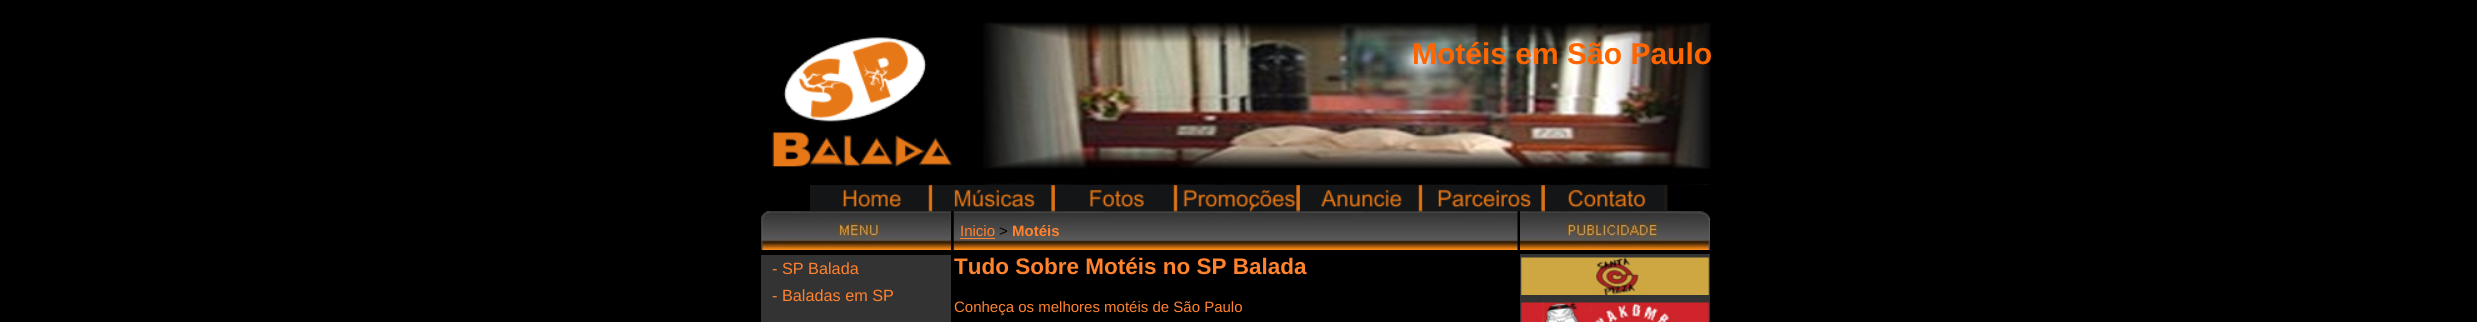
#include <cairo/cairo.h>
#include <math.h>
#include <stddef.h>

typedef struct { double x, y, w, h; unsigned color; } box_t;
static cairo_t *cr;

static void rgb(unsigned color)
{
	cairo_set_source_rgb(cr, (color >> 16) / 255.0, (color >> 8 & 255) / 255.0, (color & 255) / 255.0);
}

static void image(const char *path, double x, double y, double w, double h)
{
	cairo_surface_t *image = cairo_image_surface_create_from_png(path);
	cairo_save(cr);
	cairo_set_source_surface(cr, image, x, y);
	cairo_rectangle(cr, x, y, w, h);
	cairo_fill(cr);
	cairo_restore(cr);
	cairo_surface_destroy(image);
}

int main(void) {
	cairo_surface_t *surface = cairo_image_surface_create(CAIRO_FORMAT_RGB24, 2477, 322);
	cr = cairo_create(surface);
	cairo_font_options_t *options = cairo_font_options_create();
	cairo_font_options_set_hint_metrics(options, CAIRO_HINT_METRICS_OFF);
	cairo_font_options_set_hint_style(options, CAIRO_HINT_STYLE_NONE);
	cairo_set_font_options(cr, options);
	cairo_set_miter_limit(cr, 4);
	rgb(0x000000);
	cairo_paint(cr);
	image("img/1.png", 772, 37, 181, 130);
	image("img/2.png", 983, 22, 728, 163);
	image("img/10.png", 761, 211, 191, 39);
	image("img/3.png", 810, 185, 123, 27);
	image("img/11.png", 951, 211, 569, 39);
	image("img/4.png", 932, 185, 123, 27);
	image("img/5.png", 1055, 185, 123, 27);
	image("img/6.png", 1177, 185, 123, 27);
	image("img/7.png", 1300, 185, 123, 27);
	image("img/12.png", 1520, 211, 190, 39);
	image("img/8.png", 1422, 185, 123, 27);
	image("img/9.png", 1545, 185, 123, 27);
	{
		static const box_t items[] = {
			{960, 238, 35, 1, 0xff822f},
			{761, 255, 190, 67, 0x333333},
			{1520, 254, 190, 68, 0x333333},
		};
		for (size_t i = 0; i < sizeof items / sizeof *items; i++) {
			rgb(items[i].color);
			cairo_rectangle(cr, items[i].x, items[i].y, items[i].w, items[i].h);
			cairo_fill(cr);
		}
	}
	image("img/13.png", 1521, 257, 188, 38);
	image("img/14.png", 1521, 302, 188, 20);
	cairo_select_font_face(cr, "Liberation Sans", CAIRO_FONT_SLANT_NORMAL, CAIRO_FONT_WEIGHT_BOLD);
	cairo_set_font_size(cr, 30);
	rgb(0xff6600);
	cairo_move_to(cr, 1412, 64);
	cairo_show_text(cr, "Motéis em São Paulo");
	cairo_select_font_face(cr, "Liberation Sans", CAIRO_FONT_SLANT_NORMAL, CAIRO_FONT_WEIGHT_NORMAL);
	cairo_set_font_size(cr, 15);
	rgb(0xff822f);
	cairo_move_to(cr, 960, 236);
	cairo_show_text(cr, "Inicio");
	rgb(0x000000);
	cairo_move_to(cr, 999, 236);
	cairo_show_text(cr, ">");
	cairo_select_font_face(cr, "Liberation Sans", CAIRO_FONT_SLANT_NORMAL, CAIRO_FONT_WEIGHT_BOLD);
	rgb(0xff822f);
	cairo_move_to(cr, 1012, 236);
	cairo_show_text(cr, "Motéis");
	cairo_select_font_face(cr, "Liberation Sans", CAIRO_FONT_SLANT_NORMAL, CAIRO_FONT_WEIGHT_NORMAL);
	cairo_set_font_size(cr, 16.25);
	cairo_move_to(cr, 772, 274);
	cairo_show_text(cr, "- SP Balada");
	cairo_move_to(cr, 772, 301);
	cairo_show_text(cr, "- Baladas em SP");
	cairo_select_font_face(cr, "Liberation Sans", CAIRO_FONT_SLANT_NORMAL, CAIRO_FONT_WEIGHT_BOLD);
	cairo_set_font_size(cr, 22.5);
	cairo_move_to(cr, 954, 274);
	cairo_show_text(cr, "Tudo Sobre Motéis no SP Balada");
	cairo_select_font_face(cr, "Liberation Sans", CAIRO_FONT_SLANT_NORMAL, CAIRO_FONT_WEIGHT_NORMAL);
	cairo_set_font_size(cr, 15);
	cairo_move_to(cr, 954, 312);
	cairo_show_text(cr, "Conheça os melhores motéis de São Paulo");
	cairo_surface_write_to_png(surface, "page.png");
	cairo_font_options_destroy(options);
	cairo_destroy(cr);
	cairo_surface_destroy(surface);
	return 0;
}
